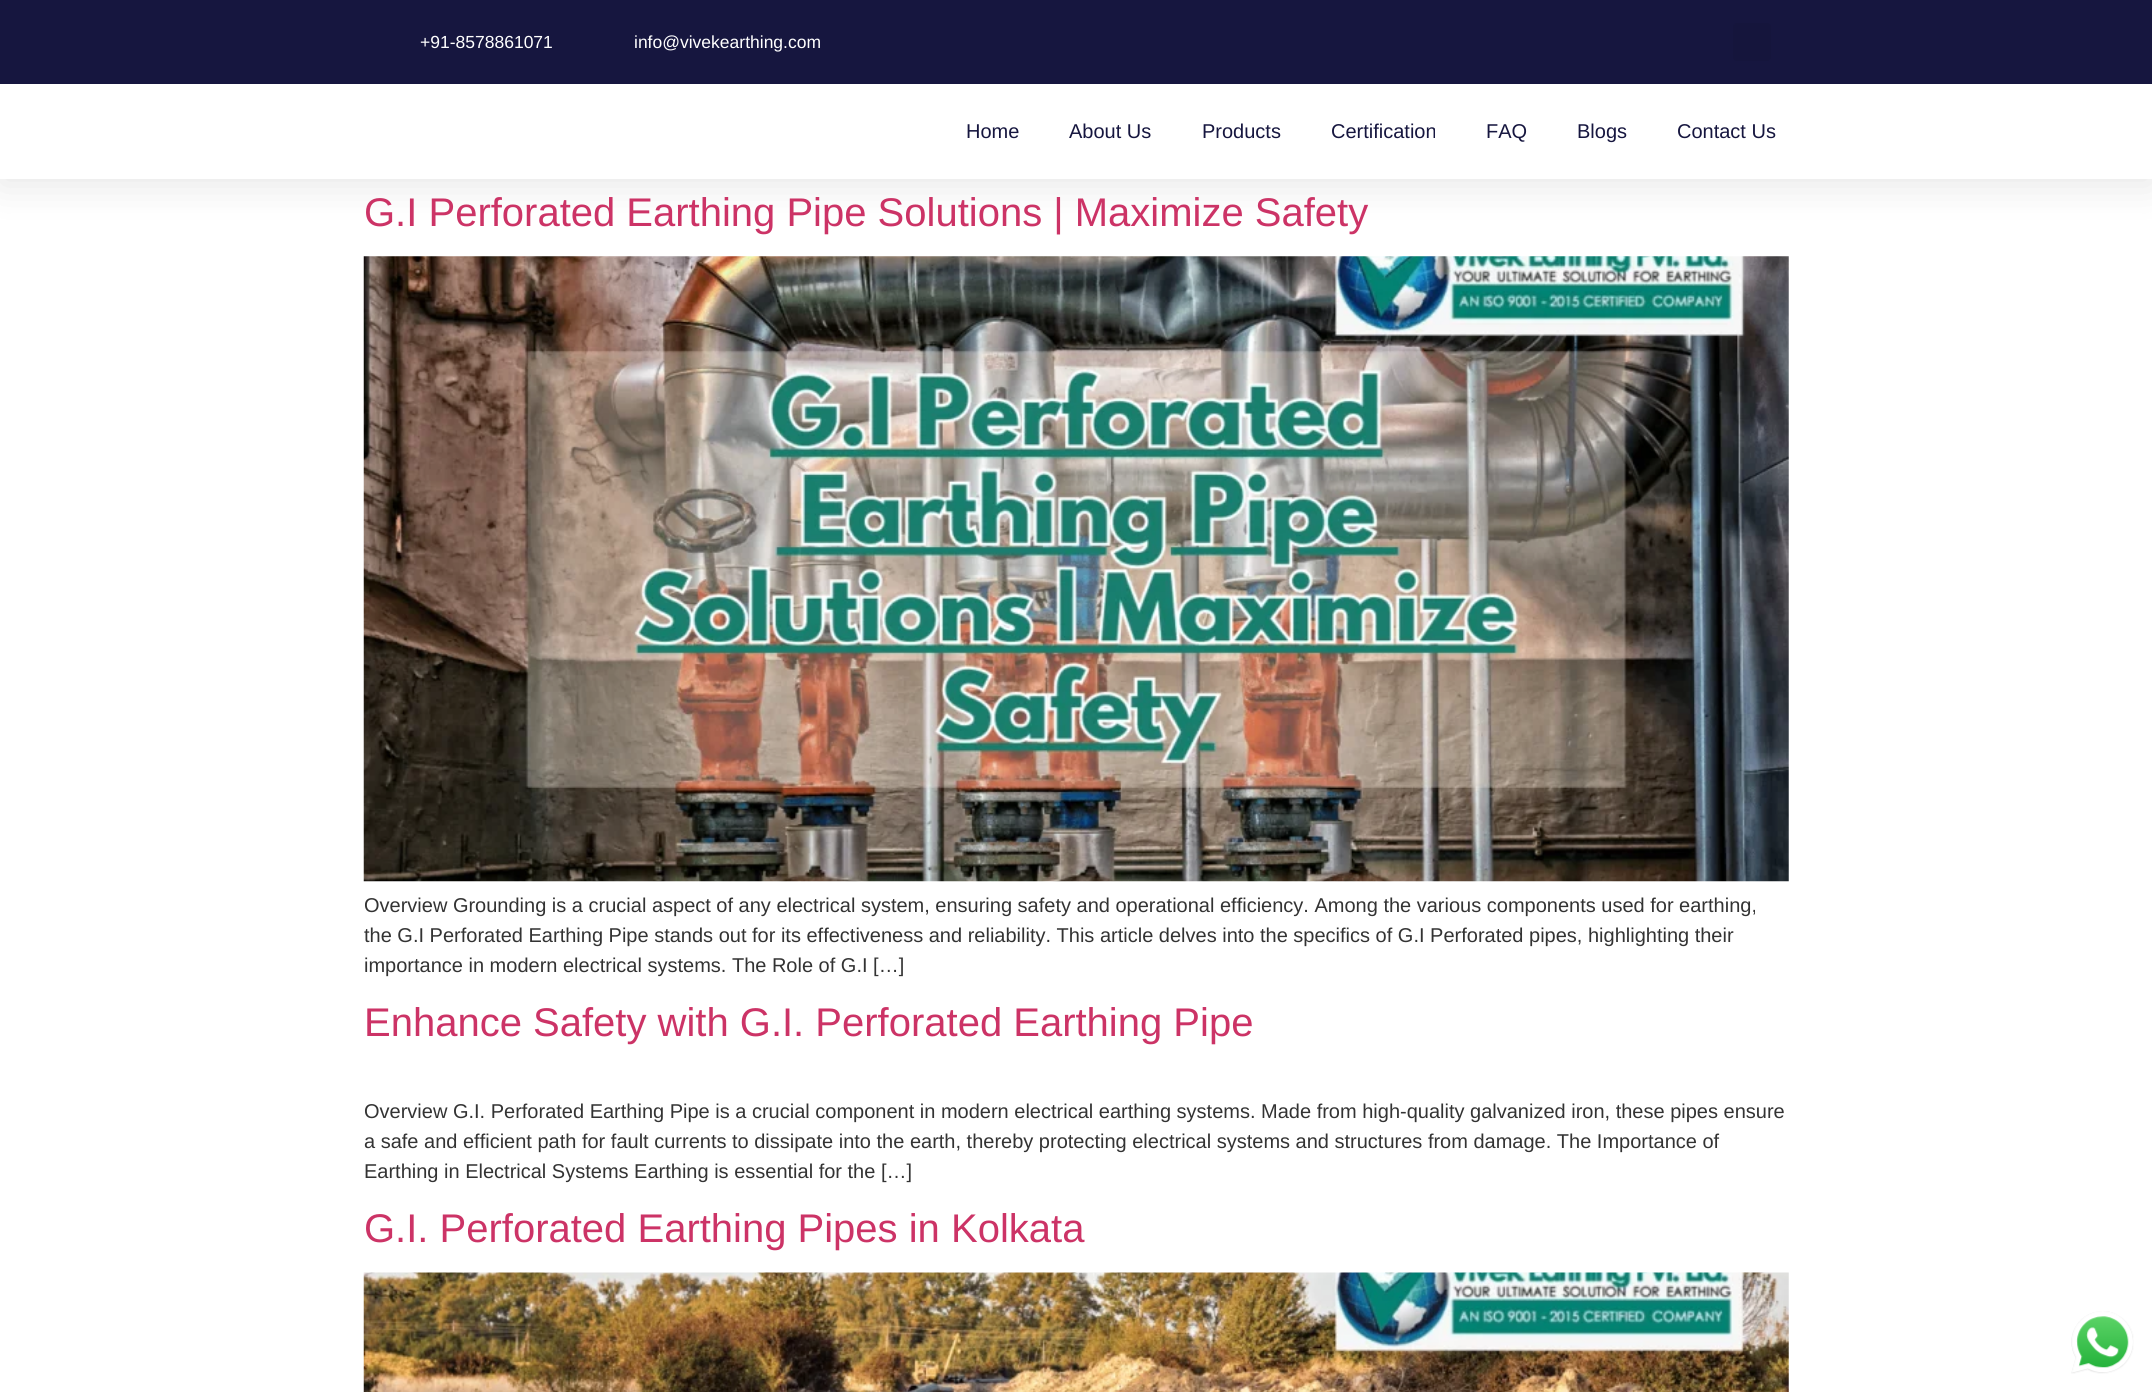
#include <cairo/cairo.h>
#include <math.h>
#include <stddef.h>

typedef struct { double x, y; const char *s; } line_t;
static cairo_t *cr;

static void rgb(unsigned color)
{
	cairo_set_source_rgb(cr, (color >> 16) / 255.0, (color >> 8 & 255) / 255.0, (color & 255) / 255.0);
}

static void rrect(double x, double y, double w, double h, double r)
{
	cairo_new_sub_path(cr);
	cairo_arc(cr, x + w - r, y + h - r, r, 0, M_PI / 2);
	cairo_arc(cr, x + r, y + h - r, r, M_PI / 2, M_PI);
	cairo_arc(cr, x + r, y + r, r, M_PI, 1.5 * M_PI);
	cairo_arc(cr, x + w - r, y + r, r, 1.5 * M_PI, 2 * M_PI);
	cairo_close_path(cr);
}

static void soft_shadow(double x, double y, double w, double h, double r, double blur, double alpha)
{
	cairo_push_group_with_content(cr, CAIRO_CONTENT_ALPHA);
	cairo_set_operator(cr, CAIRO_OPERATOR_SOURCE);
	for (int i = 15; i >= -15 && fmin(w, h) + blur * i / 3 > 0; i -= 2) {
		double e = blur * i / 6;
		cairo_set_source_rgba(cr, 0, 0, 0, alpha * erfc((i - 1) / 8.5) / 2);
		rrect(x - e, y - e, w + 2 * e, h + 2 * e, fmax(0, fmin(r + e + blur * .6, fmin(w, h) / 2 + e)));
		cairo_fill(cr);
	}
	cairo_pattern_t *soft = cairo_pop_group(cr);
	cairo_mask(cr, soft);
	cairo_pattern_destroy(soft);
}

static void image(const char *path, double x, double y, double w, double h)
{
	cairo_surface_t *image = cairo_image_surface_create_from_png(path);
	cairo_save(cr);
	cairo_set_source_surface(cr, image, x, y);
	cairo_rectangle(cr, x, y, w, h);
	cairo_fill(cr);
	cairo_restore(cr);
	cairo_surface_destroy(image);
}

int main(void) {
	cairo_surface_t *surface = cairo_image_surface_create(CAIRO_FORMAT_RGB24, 2152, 1392);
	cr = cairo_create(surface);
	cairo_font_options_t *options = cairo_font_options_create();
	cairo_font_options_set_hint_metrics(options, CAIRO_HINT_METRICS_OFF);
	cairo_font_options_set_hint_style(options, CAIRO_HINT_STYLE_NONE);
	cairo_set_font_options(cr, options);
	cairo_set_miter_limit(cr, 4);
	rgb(0xffffff);
	cairo_paint(cr);
	rgb(0x000000);
	soft_shadow(0, 6, 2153, 179, 0, 19, 0.1);
	rgb(0x16163f);
	cairo_rectangle(cr, 0, 0, 2152, 84);
	cairo_fill(cr);
	rgb(0x15153c);
	rrect(1733, 23, 38, 38, 4);
	cairo_fill(cr);
	rgb(0xffffff);
	cairo_rectangle(cr, 0, 84, 2152, 95);
	cairo_fill(cr);
	image("img/1.png", 363, 256, 1426, 626);
	image("img/2.png", 363, 1272, 1426, 120);
	image("img/3.png", 2071, 1311, 63, 63);
	cairo_select_font_face(cr, "Liberation Sans", CAIRO_FONT_SLANT_NORMAL, CAIRO_FONT_WEIGHT_NORMAL);
	cairo_set_font_size(cr, 17.5);
	cairo_move_to(cr, 420, 48);
	cairo_show_text(cr, "+91-8578861071");
	cairo_move_to(cr, 634, 48);
	cairo_show_text(cr, "info@vivekearthing.com");
	cairo_set_font_size(cr, 20);
	rgb(0x16163f);
	{
		static const line_t items[] = {
			{966, 138, "Home"},
			{1069, 138, "About Us"},
			{1202, 138, "Products"},
			{1331, 138, "Certification"},
			{1486, 138, "FAQ"},
			{1577, 138, "Blogs"},
			{1677, 138, "Contact Us"},
		};
		for (size_t i = 0; i < sizeof items / sizeof *items; i++) {
			cairo_move_to(cr, items[i].x, items[i].y);
			cairo_show_text(cr, items[i].s);
		}
	}
	cairo_set_font_size(cr, 40);
	rgb(0xcc3366);
	cairo_move_to(cr, 364, 226);
	cairo_show_text(cr, "G.I Perforated Earthing Pipe Solutions | Maximize Safety");
	cairo_set_font_size(cr, 20);
	rgb(0x333333);
	{
		static const line_t items[] = {
			{364, 912, "Overview Grounding is a crucial aspect of any electrical system, ensuring safety and operational efficiency. Among the various components used for earthing,"},
			{364, 942, "the G.I Perforated Earthing Pipe stands out for its effectiveness and reliability. This article delves into the specifics of G.I Perforated pipes, highlighting their"},
			{364, 972, "importance in modern electrical systems. The Role of G.I […]"},
		};
		for (size_t i = 0; i < sizeof items / sizeof *items; i++) {
			cairo_move_to(cr, items[i].x, items[i].y);
			cairo_show_text(cr, items[i].s);
		}
	}
	cairo_set_font_size(cr, 40);
	rgb(0xcc3366);
	cairo_move_to(cr, 364, 1036);
	cairo_show_text(cr, "Enhance Safety with G.I. Perforated Earthing Pipe");
	cairo_set_font_size(cr, 20);
	rgb(0x333333);
	{
		static const line_t items[] = {
			{364, 1118, "Overview G.I. Perforated Earthing Pipe is a crucial component in modern electrical earthing systems. Made from high-quality galvanized iron, these pipes ensure"},
			{364, 1148, "a safe and efficient path for fault currents to dissipate into the earth, thereby protecting electrical systems and structures from damage. The Importance of"},
			{364, 1178, "Earthing in Electrical Systems Earthing is essential for the […]"},
		};
		for (size_t i = 0; i < sizeof items / sizeof *items; i++) {
			cairo_move_to(cr, items[i].x, items[i].y);
			cairo_show_text(cr, items[i].s);
		}
	}
	cairo_set_font_size(cr, 40);
	rgb(0xcc3366);
	cairo_move_to(cr, 364, 1242);
	cairo_show_text(cr, "G.I. Perforated Earthing Pipes in Kolkata");
	cairo_surface_write_to_png(surface, "page.png");
	cairo_font_options_destroy(options);
	cairo_destroy(cr);
	cairo_surface_destroy(surface);
	return 0;
}
